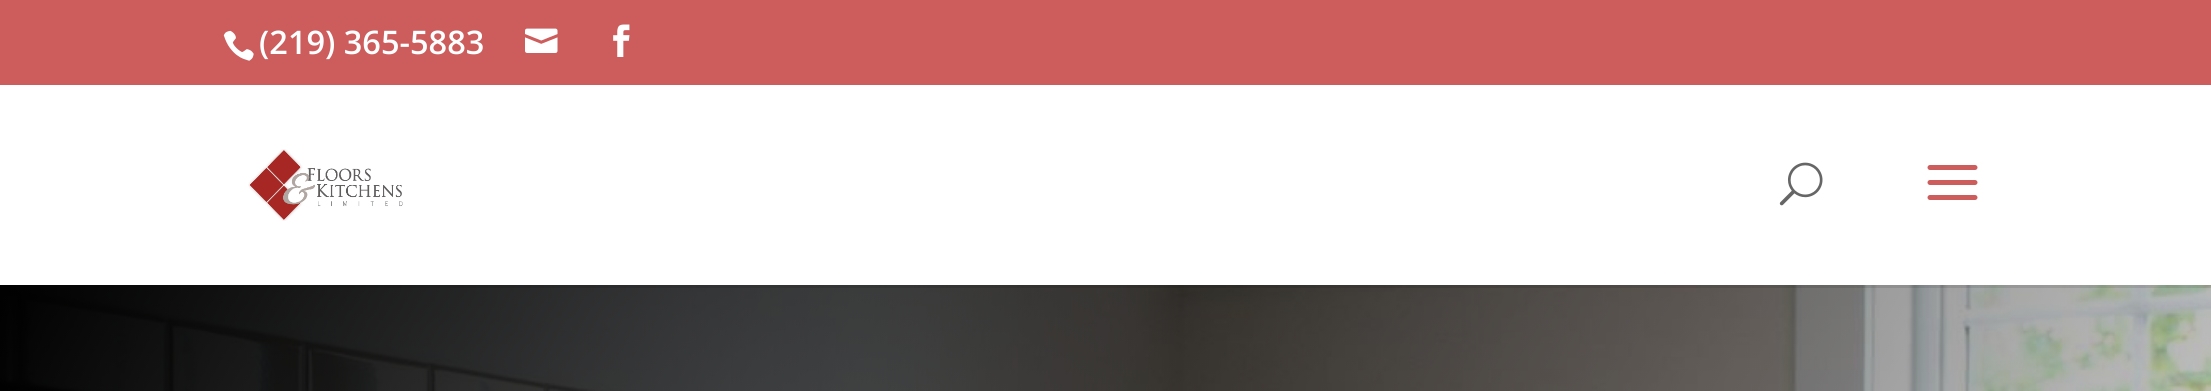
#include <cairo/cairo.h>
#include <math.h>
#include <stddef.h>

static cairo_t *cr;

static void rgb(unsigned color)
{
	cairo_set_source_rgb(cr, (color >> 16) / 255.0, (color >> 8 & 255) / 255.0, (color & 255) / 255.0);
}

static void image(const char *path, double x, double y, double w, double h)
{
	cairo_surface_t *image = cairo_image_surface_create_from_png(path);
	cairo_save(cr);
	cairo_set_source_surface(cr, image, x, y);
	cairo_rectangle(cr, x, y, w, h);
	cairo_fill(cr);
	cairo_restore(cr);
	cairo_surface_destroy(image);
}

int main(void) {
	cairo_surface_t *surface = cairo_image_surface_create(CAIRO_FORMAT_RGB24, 2211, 391);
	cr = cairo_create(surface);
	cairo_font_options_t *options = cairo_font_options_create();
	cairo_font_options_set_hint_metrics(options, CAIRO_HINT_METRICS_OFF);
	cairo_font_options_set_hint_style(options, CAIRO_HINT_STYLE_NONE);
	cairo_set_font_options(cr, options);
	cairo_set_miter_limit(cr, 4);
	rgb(0xffffff);
	cairo_paint(cr);
	rgb(0xcd5c5c);
	cairo_rectangle(cr, 0, 0, 2211, 85);
	cairo_fill(cr);
	image("img/1.png", 223, 30, 31, 31);
	image("img/2.png", 525, 28, 33, 25);
	image("img/3.png", 613, 24, 17, 33);
	image("img/7.png", 0, 285, 2211, 106);
	cairo_set_source_rgba(cr, 0, 0, 0, 0.1);
	cairo_new_path(cr);
	cairo_move_to(cr, 0, 285);
	cairo_line_to(cr, 0, 288);
	cairo_line_to(cr, 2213, 288);
	cairo_line_to(cr, 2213, 88);
	cairo_line_to(cr, 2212, 88);
	cairo_line_to(cr, 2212, 285);
	cairo_close_path(cr);
	cairo_fill(cr);
	image("img/4.png", 248, 149, 155, 72);
	image("img/5.png", 1779, 162, 44, 44);
	image("img/6.png", 1927, 165, 51, 35);
	cairo_select_font_face(cr, "Open Sans SemiBold", CAIRO_FONT_SLANT_NORMAL, CAIRO_FONT_WEIGHT_NORMAL);
	cairo_set_font_size(cr, 32.5);
	rgb(0xffffff);
	cairo_move_to(cr, 259, 54);
	cairo_show_text(cr, "(219) 365-5883");
	cairo_surface_write_to_png(surface, "page.png");
	cairo_font_options_destroy(options);
	cairo_destroy(cr);
	cairo_surface_destroy(surface);
	return 0;
}
